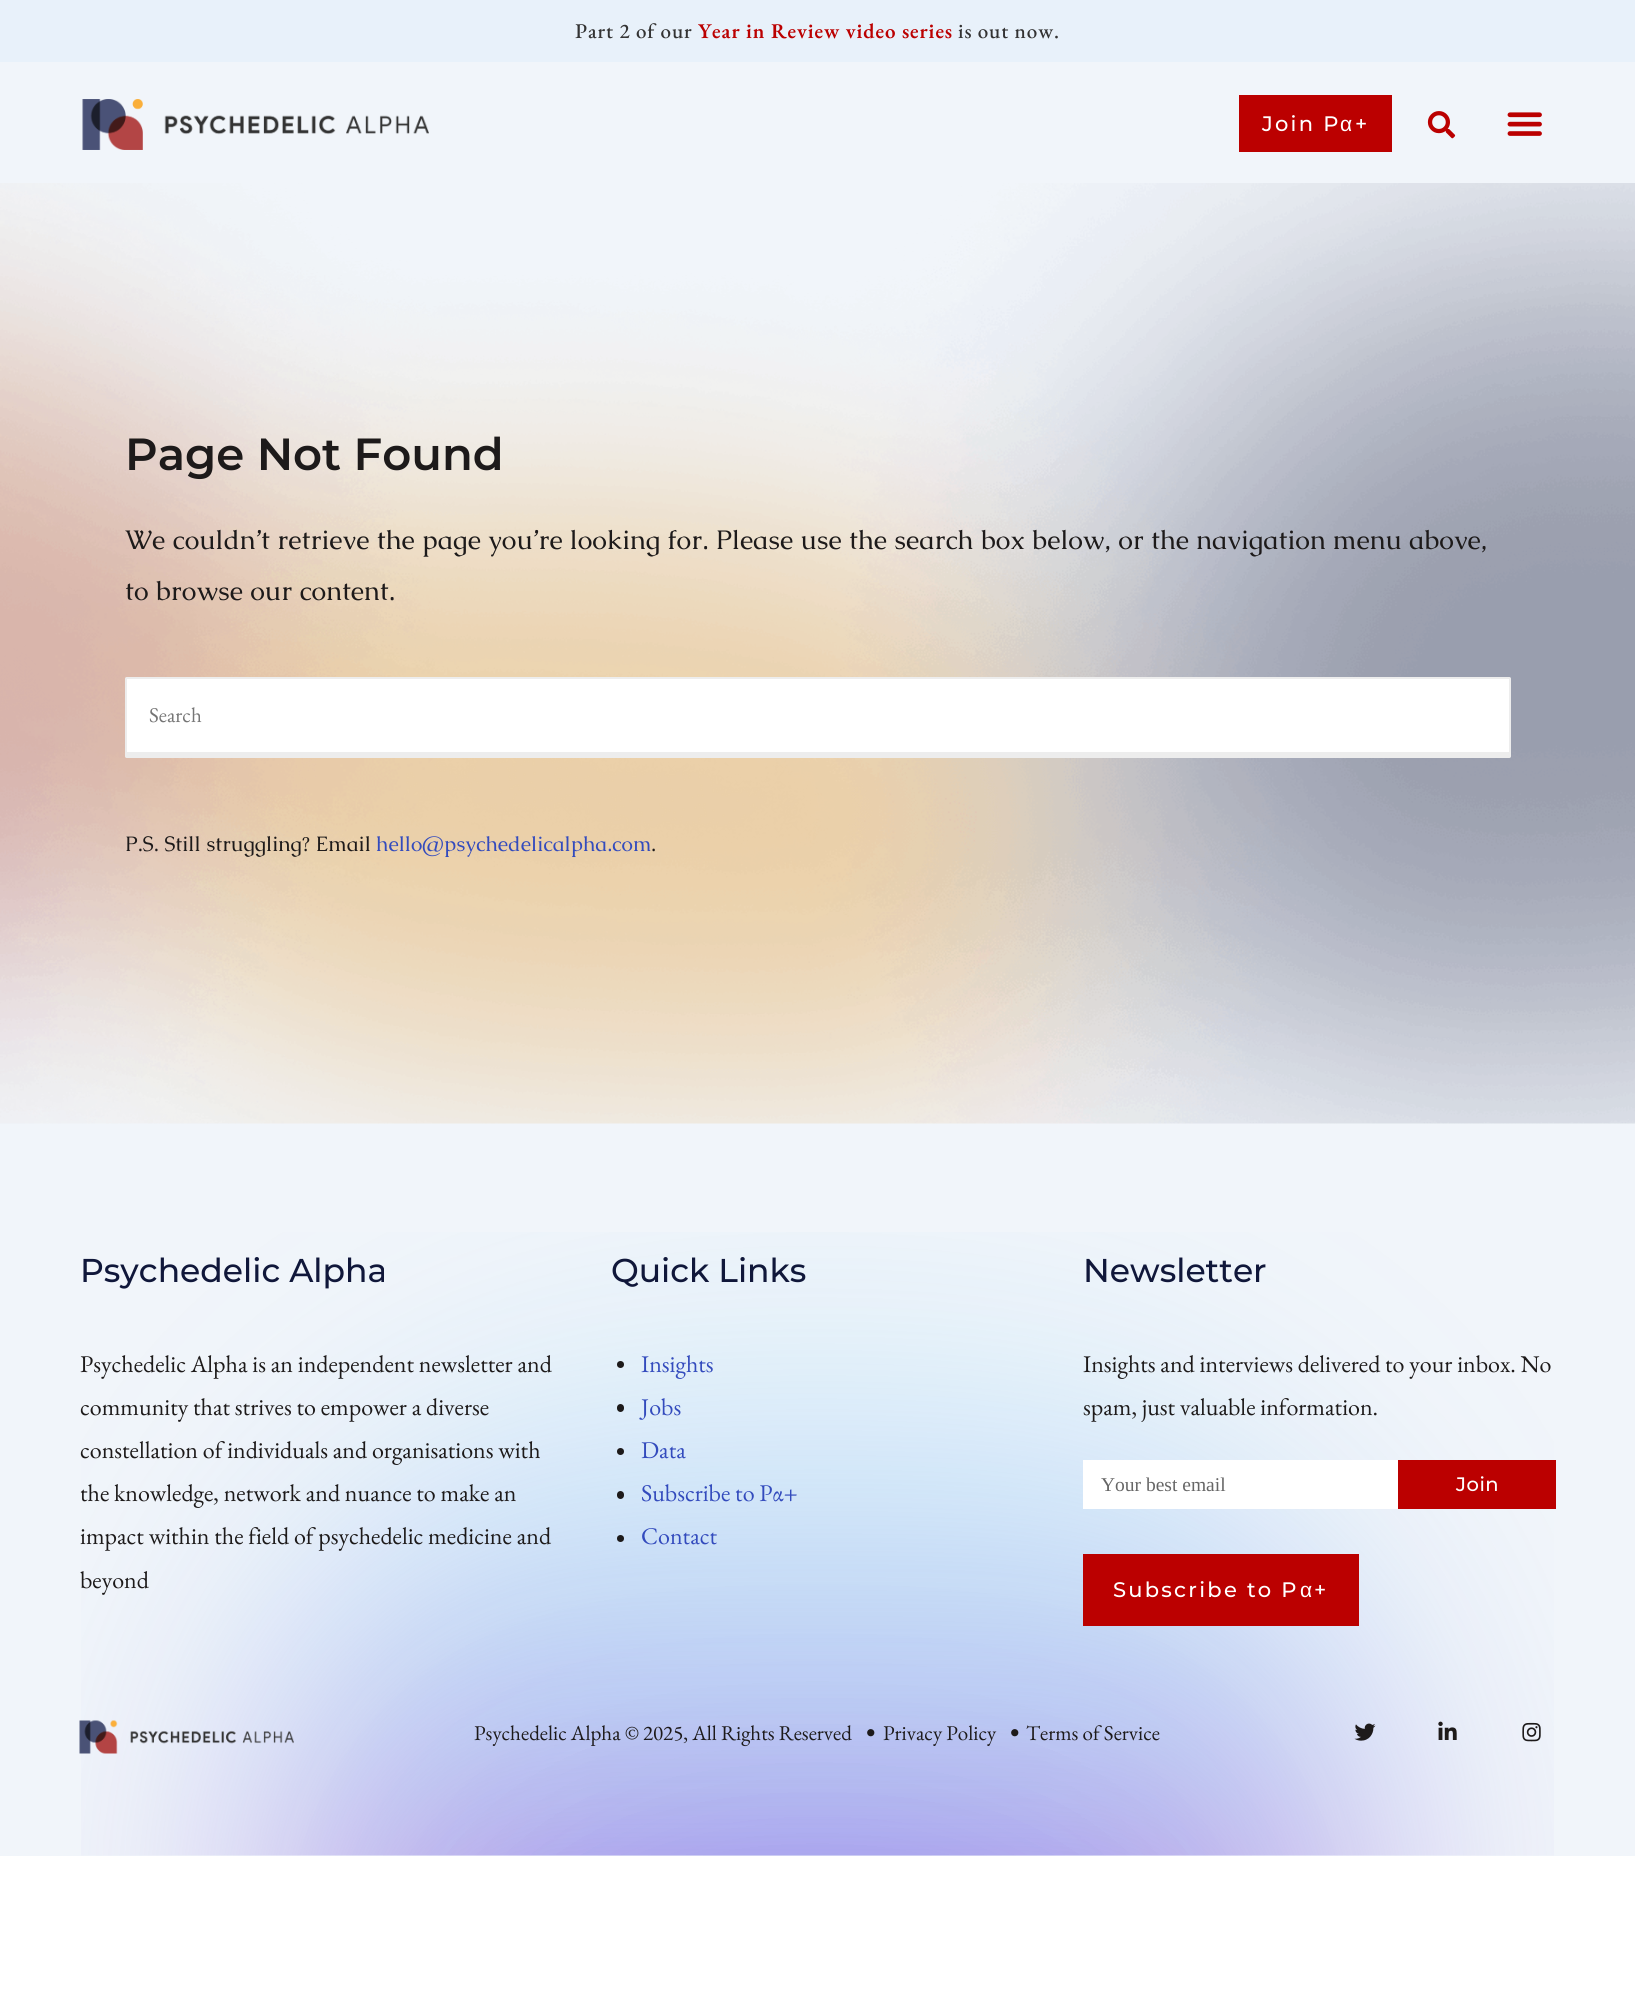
#include <cairo/cairo.h>
#include <math.h>
#include <stddef.h>

typedef struct { double x, y; const char *s; } line_t;
typedef struct { double x, y, w, h; unsigned color; } box_t;
static cairo_t *cr;

static void rgb(unsigned color)
{
	cairo_set_source_rgb(cr, (color >> 16) / 255.0, (color >> 8 & 255) / 255.0, (color & 255) / 255.0);
}

static void tracked(double x, double y, const char *s, double letter, double word)
{
	cairo_move_to(cr, x, y);
	while (*s) {
		char ch[5] = {0};
		int n = 0;
		do ch[n++] = *s++; while ((*s & 0xC0) == 0x80);
		cairo_show_text(cr, ch);
		cairo_rel_move_to(cr, letter + word * (*ch == ' '), 0);
	}
}

static void rrect(double x, double y, double w, double h, double r)
{
	cairo_new_sub_path(cr);
	cairo_arc(cr, x + w - r, y + h - r, r, 0, M_PI / 2);
	cairo_arc(cr, x + r, y + h - r, r, M_PI / 2, M_PI);
	cairo_arc(cr, x + r, y + r, r, M_PI, 1.5 * M_PI);
	cairo_arc(cr, x + w - r, y + r, r, 1.5 * M_PI, 2 * M_PI);
	cairo_close_path(cr);
}

static void image(const char *path, double x, double y, double w, double h)
{
	cairo_surface_t *image = cairo_image_surface_create_from_png(path);
	cairo_save(cr);
	cairo_set_source_surface(cr, image, x, y);
	cairo_rectangle(cr, x, y, w, h);
	cairo_fill(cr);
	cairo_restore(cr);
	cairo_surface_destroy(image);
}

int main(void) {
	cairo_surface_t *surface = cairo_image_surface_create(CAIRO_FORMAT_RGB24, 1635, 2007);
	cr = cairo_create(surface);
	cairo_font_options_t *options = cairo_font_options_create();
	cairo_font_options_set_hint_metrics(options, CAIRO_HINT_METRICS_OFF);
	cairo_font_options_set_hint_style(options, CAIRO_HINT_STYLE_NONE);
	cairo_set_font_options(cr, options);
	cairo_set_miter_limit(cr, 4);
	rgb(0xffffff);
	cairo_paint(cr);
	rgb(0xe8f1fa);
	cairo_rectangle(cr, 0, 0, 1635, 62);
	cairo_fill(cr);
	rgb(0xf1f5fa);
	cairo_rectangle(cr, 0, 62, 1635, 1794);
	cairo_fill(cr);
	image("img/1.png", 82, 99, 347, 51);
	rgb(0xbb0000);
	cairo_rectangle(cr, 1239, 95, 153, 57);
	cairo_fill(cr);
	image("img/2.png", 1427, 111, 29, 28);
	image("img/3.png", 1507, 112, 35, 24);
	image("img/4.png", 0, 183, 1635, 941);
	rgb(0xffffff);
	cairo_rectangle(cr, 127, 679, 1382, 73);
	cairo_fill(cr);
	rrect(126, 678, 1384, 79, 0.5);
	rgb(0xededed);
	cairo_stroke(cr);
	cairo_rectangle(cr, 126, 752, 1385, 4);
	cairo_fill(cr);
	image("img/5.png", 81, 1232, 1473, 624);
	rgb(0x1d1a1a);
	cairo_arc(cr, 620.5, 1364.5, 3.5, 0, 2 * M_PI);
	cairo_fill(cr);
	rrect(617, 1404, 7, 8, 3.5);
	cairo_fill(cr);
	cairo_arc(cr, 620.5, 1451.5, 3.5, 0, 2 * M_PI);
	cairo_fill(cr);
	rrect(617, 1491, 7, 8, 3.5);
	cairo_fill(cr);
	cairo_arc(cr, 620.5, 1538.5, 3.5, 0, 2 * M_PI);
	cairo_fill(cr);
	{
		static const box_t items[] = {
			{1083, 1460, 315, 49, 0xffffff},
			{1398, 1460, 158, 49, 0xbb0000},
			{1083, 1554, 276, 72, 0xbb0000},
		};
		for (size_t i = 0; i < sizeof items / sizeof *items; i++) {
			rgb(items[i].color);
			cairo_rectangle(cr, items[i].x, items[i].y, items[i].w, items[i].h);
			cairo_fill(cr);
		}
	}
	image("img/6.png", 79, 1720, 215, 34);
	image("img/7.png", 867, 1729, 8, 8);
	image("img/8.png", 1011, 1729, 8, 8);
	image("img/9.png", 1354, 1723, 22, 18);
	image("img/10.png", 1438, 1721, 19, 19);
	image("img/11.png", 1522, 1722, 19, 20);
	cairo_select_font_face(cr, "EB Garamond Medium", CAIRO_FONT_SLANT_NORMAL, CAIRO_FONT_WEIGHT_NORMAL);
	cairo_set_font_size(cr, 21);
	rgb(0x333333);
	tracked(575, 38, "Part 2 of our", 0.9, 0);
	cairo_select_font_face(cr, "EB Garamond SemiBold", CAIRO_FONT_SLANT_NORMAL, CAIRO_FONT_WEIGHT_NORMAL);
	rgb(0xbb0000);
	tracked(698, 38, "Year in Review video series", 0.9, 0);
	cairo_select_font_face(cr, "EB Garamond Medium", CAIRO_FONT_SLANT_NORMAL, CAIRO_FONT_WEIGHT_NORMAL);
	rgb(0x333333);
	tracked(958, 38, "is out now.", 0.9, 0);
	cairo_select_font_face(cr, "Montserrat Medium", CAIRO_FONT_SLANT_NORMAL, CAIRO_FONT_WEIGHT_NORMAL);
	rgb(0xffffff);
	tracked(1262, 131, "Join P", 2.25, 0);
	cairo_select_font_face(cr, "Liberation Sans", CAIRO_FONT_SLANT_NORMAL, CAIRO_FONT_WEIGHT_NORMAL);
	tracked(1340, 131, "α", 2.25, 0);
	cairo_select_font_face(cr, "Montserrat Medium", CAIRO_FONT_SLANT_NORMAL, CAIRO_FONT_WEIGHT_NORMAL);
	tracked(1355, 131, "+", 2.25, 0);
	cairo_select_font_face(cr, "Montserrat SemiBold", CAIRO_FONT_SLANT_NORMAL, CAIRO_FONT_WEIGHT_NORMAL);
	cairo_set_font_size(cr, 45);
	rgb(0x1d1a1a);
	cairo_move_to(cr, 125, 470);
	cairo_show_text(cr, "Page Not Found");
	cairo_select_font_face(cr, "Caudex", CAIRO_FONT_SLANT_NORMAL, CAIRO_FONT_WEIGHT_NORMAL);
	cairo_set_font_size(cr, 27);
	cairo_move_to(cr, 125, 549);
	cairo_show_text(cr, "We couldn’t retrieve the page you’re looking for. Please use the search box below, or the navigation menu above,");
	cairo_move_to(cr, 125, 600);
	cairo_show_text(cr, "to browse our content.");
	cairo_select_font_face(cr, "EB Garamond", CAIRO_FONT_SLANT_NORMAL, CAIRO_FONT_WEIGHT_NORMAL);
	cairo_set_font_size(cr, 21);
	rgb(0x757575);
	cairo_move_to(cr, 149, 722);
	cairo_show_text(cr, "Search");
	cairo_select_font_face(cr, "Caudex", CAIRO_FONT_SLANT_NORMAL, CAIRO_FONT_WEIGHT_NORMAL);
	rgb(0x1d1a1a);
	cairo_move_to(cr, 125, 851);
	cairo_show_text(cr, "P.S. Still struggling? Email");
	rgb(0x334bbd);
	cairo_move_to(cr, 376, 851);
	cairo_show_text(cr, "hello@psychedelicalpha.com");
	rgb(0x1d1a1a);
	cairo_move_to(cr, 651, 851);
	cairo_show_text(cr, ".");
	cairo_select_font_face(cr, "Montserrat Medium", CAIRO_FONT_SLANT_NORMAL, CAIRO_FONT_WEIGHT_NORMAL);
	cairo_set_font_size(cr, 33);
	rgb(0x10173a);
	cairo_move_to(cr, 80, 1282);
	cairo_show_text(cr, "Psychedelic Alpha");
	cairo_select_font_face(cr, "EB Garamond", CAIRO_FONT_SLANT_NORMAL, CAIRO_FONT_WEIGHT_NORMAL);
	cairo_set_font_size(cr, 24);
	rgb(0x1d1a1a);
	{
		static const line_t items[] = {
			{80, 1372, "Psychedelic Alpha is an independent newsletter and"},
			{80, 1415, "community that strives to empower a diverse"},
			{80, 1458, "constellation of individuals and organisations with"},
			{80, 1501, "the knowledge, network and nuance to make an"},
			{80, 1544, "impact within the field of psychedelic medicine and"},
			{80, 1588, "beyond"},
		};
		for (size_t i = 0; i < sizeof items / sizeof *items; i++) {
			cairo_move_to(cr, items[i].x, items[i].y);
			cairo_show_text(cr, items[i].s);
		}
	}
	cairo_select_font_face(cr, "Montserrat Medium", CAIRO_FONT_SLANT_NORMAL, CAIRO_FONT_WEIGHT_NORMAL);
	cairo_set_font_size(cr, 33);
	rgb(0x10173a);
	cairo_move_to(cr, 611, 1282);
	cairo_show_text(cr, "Quick Links");
	cairo_select_font_face(cr, "EB Garamond", CAIRO_FONT_SLANT_NORMAL, CAIRO_FONT_WEIGHT_NORMAL);
	cairo_set_font_size(cr, 24);
	rgb(0x334bbd);
	{
		static const line_t items[] = {
			{641, 1372, "Insights"},
			{641, 1415, "Jobs"},
			{641, 1458, "Data"},
			{641, 1501, "Subscribe to Pα+"},
			{641, 1544, "Contact"},
		};
		for (size_t i = 0; i < sizeof items / sizeof *items; i++) {
			cairo_move_to(cr, items[i].x, items[i].y);
			cairo_show_text(cr, items[i].s);
		}
	}
	cairo_select_font_face(cr, "Montserrat Medium", CAIRO_FONT_SLANT_NORMAL, CAIRO_FONT_WEIGHT_NORMAL);
	cairo_set_font_size(cr, 33);
	rgb(0x10173a);
	cairo_move_to(cr, 1083, 1282);
	cairo_show_text(cr, "Newsletter");
	cairo_select_font_face(cr, "EB Garamond", CAIRO_FONT_SLANT_NORMAL, CAIRO_FONT_WEIGHT_NORMAL);
	cairo_set_font_size(cr, 24);
	rgb(0x1d1a1a);
	cairo_move_to(cr, 1083, 1372);
	cairo_show_text(cr, "Insights and interviews delivered to your inbox. No");
	cairo_move_to(cr, 1083, 1415);
	cairo_show_text(cr, "spam, just valuable information.");
	cairo_select_font_face(cr, "Liberation Serif", CAIRO_FONT_SLANT_NORMAL, CAIRO_FONT_WEIGHT_NORMAL);
	cairo_set_font_size(cr, 19.5);
	rgb(0x666666);
	cairo_move_to(cr, 1101, 1491);
	cairo_show_text(cr, "Your best email");
	cairo_select_font_face(cr, "Montserrat Medium", CAIRO_FONT_SLANT_NORMAL, CAIRO_FONT_WEIGHT_NORMAL);
	rgb(0xffffff);
	tracked(1456, 1491, "Join", 0.5, 0);
	cairo_set_font_size(cr, 21);
	tracked(1113, 1597, "Subscribe to P", 2.25, 0);
	cairo_select_font_face(cr, "Liberation Sans", CAIRO_FONT_SLANT_NORMAL, CAIRO_FONT_WEIGHT_NORMAL);
	tracked(1300, 1597, "α", 2.25, 0);
	cairo_select_font_face(cr, "Montserrat Medium", CAIRO_FONT_SLANT_NORMAL, CAIRO_FONT_WEIGHT_NORMAL);
	tracked(1314, 1597, "+", 2.25, 0);
	cairo_select_font_face(cr, "EB Garamond", CAIRO_FONT_SLANT_NORMAL, CAIRO_FONT_WEIGHT_NORMAL);
	rgb(0x1d1a1a);
	{
		static const line_t items[] = {
			{474, 1740, "Psychedelic Alpha © 2025, All Rights Reserved"},
			{883, 1740, "Privacy Policy"},
			{1026, 1740, "Terms of Service"},
		};
		for (size_t i = 0; i < sizeof items / sizeof *items; i++) {
			cairo_move_to(cr, items[i].x, items[i].y);
			cairo_show_text(cr, items[i].s);
		}
	}
	cairo_surface_write_to_png(surface, "page.png");
	cairo_font_options_destroy(options);
	cairo_destroy(cr);
	cairo_surface_destroy(surface);
	return 0;
}
